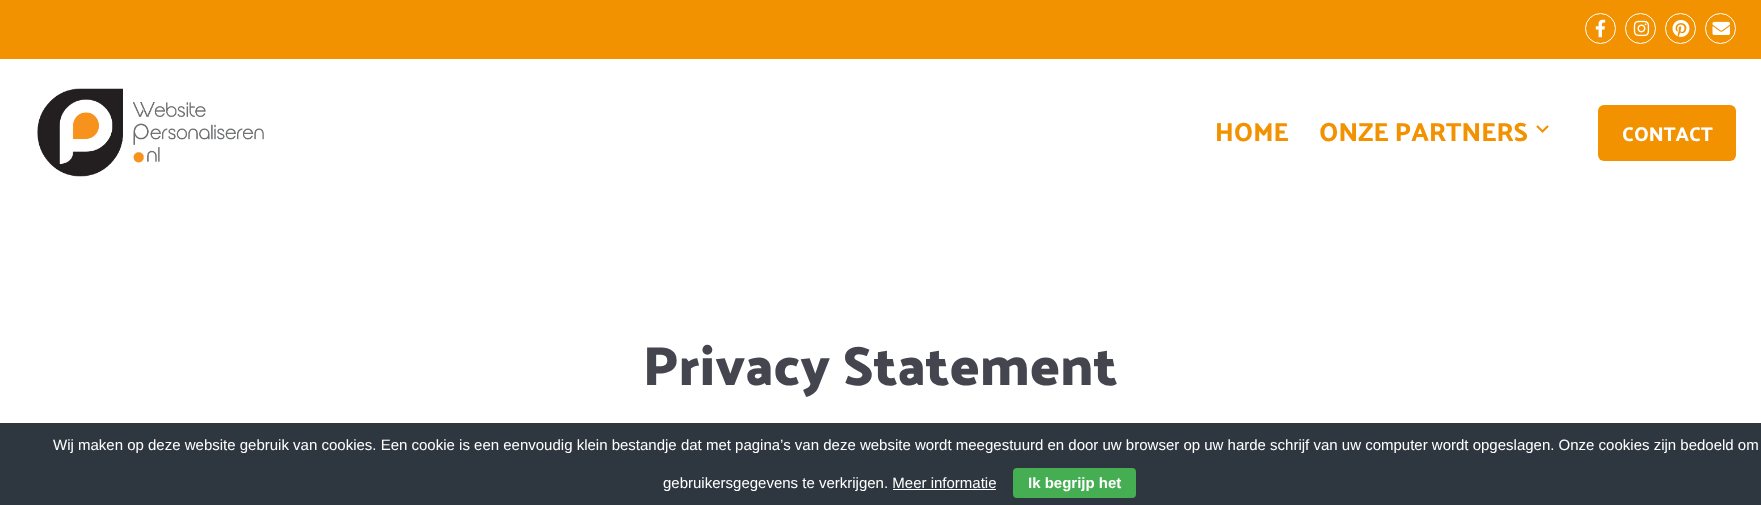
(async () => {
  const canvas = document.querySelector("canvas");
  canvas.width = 1761;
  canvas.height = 505;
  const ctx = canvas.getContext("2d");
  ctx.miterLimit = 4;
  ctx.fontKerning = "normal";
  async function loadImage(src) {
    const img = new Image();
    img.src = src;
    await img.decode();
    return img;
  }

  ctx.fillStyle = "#ffffff";
  ctx.fillRect(0, 0, 1761, 505);
  ctx.fillStyle = "#f29200";
  ctx.fillRect(0, 0, 1761, 59);
  ctx.beginPath();
  ctx.arc(1600.5, 28.5, 15, 0, Math.PI * 2);
  ctx.strokeStyle = "#ffffff";
  ctx.stroke();
  ctx.drawImage(await loadImage("img/1.png"), 1595, 19, 11, 19);
  ctx.beginPath();
  ctx.arc(1640.5, 28.5, 15, 0, Math.PI * 2);
  ctx.stroke();
  ctx.drawImage(await loadImage("img/2.png"), 1633, 20, 17, 17);
  ctx.beginPath();
  ctx.arc(1680.5, 28.5, 15, 0, Math.PI * 2);
  ctx.stroke();
  ctx.drawImage(await loadImage("img/3.png"), 1672, 20, 18, 17);
  ctx.beginPath();
  ctx.arc(1720.5, 28.5, 15, 0, Math.PI * 2);
  ctx.stroke();
  ctx.drawImage(await loadImage("img/4.png"), 1712, 21, 18, 14);
  ctx.drawImage(await loadImage("img/5.png"), 37, 88, 227, 89);
  ctx.drawImage(await loadImage("img/6.png"), 1536, 125, 13, 8);
  ctx.beginPath();
  ctx.roundRect(1598, 105, 138, 56, 6);
  ctx.fill();
  ctx.fillStyle = "#2e363f";
  ctx.fillRect(0, 423, 1761, 82);
  ctx.fillStyle = "#45ae52";
  ctx.beginPath();
  ctx.roundRect(1013, 468, 123, 30, 4);
  ctx.fill();
  ctx.fillStyle = "#ffffff";
  ctx.fillRect(893, 489, 103, 1);
  ctx.font = "500 26.25px Palanquin Dark";
  ctx.fillStyle = "#f29200";
  ctx.fillText("HOME", 1215, 141);
  ctx.fillText("ONZE PARTNERS", 1319, 141);
  ctx.font = "500 20px Palanquin Dark";
  ctx.fillStyle = "#ffffff";
  ctx.fillText("CONTACT", 1622, 141);
  ctx.font = "600 55px Palanquin Dark";
  ctx.fillStyle = "#45454f";
  ctx.fillText("Privacy Statement", 643, 385);
  ctx.font = "15px Liberation Sans";
  ctx.fillStyle = "#ffffff";
  ctx.fillText("Wij maken op deze website gebruik van cookies. Een cookie is een eenvoudig klein bestandje dat met pagina’s van deze website wordt meegestuurd en door uw browser op uw harde schrijf van uw computer wordt opgeslagen. Onze cookies zijn bedoeld om", 53, 450);
  ctx.fillText("gebruikersgegevens te verkrijgen. Meer informatie", 663, 488);
  ctx.font = "bold 15px Liberation Sans";
  ctx.fillText("Ik begrijp het", 1028, 488);
})();
